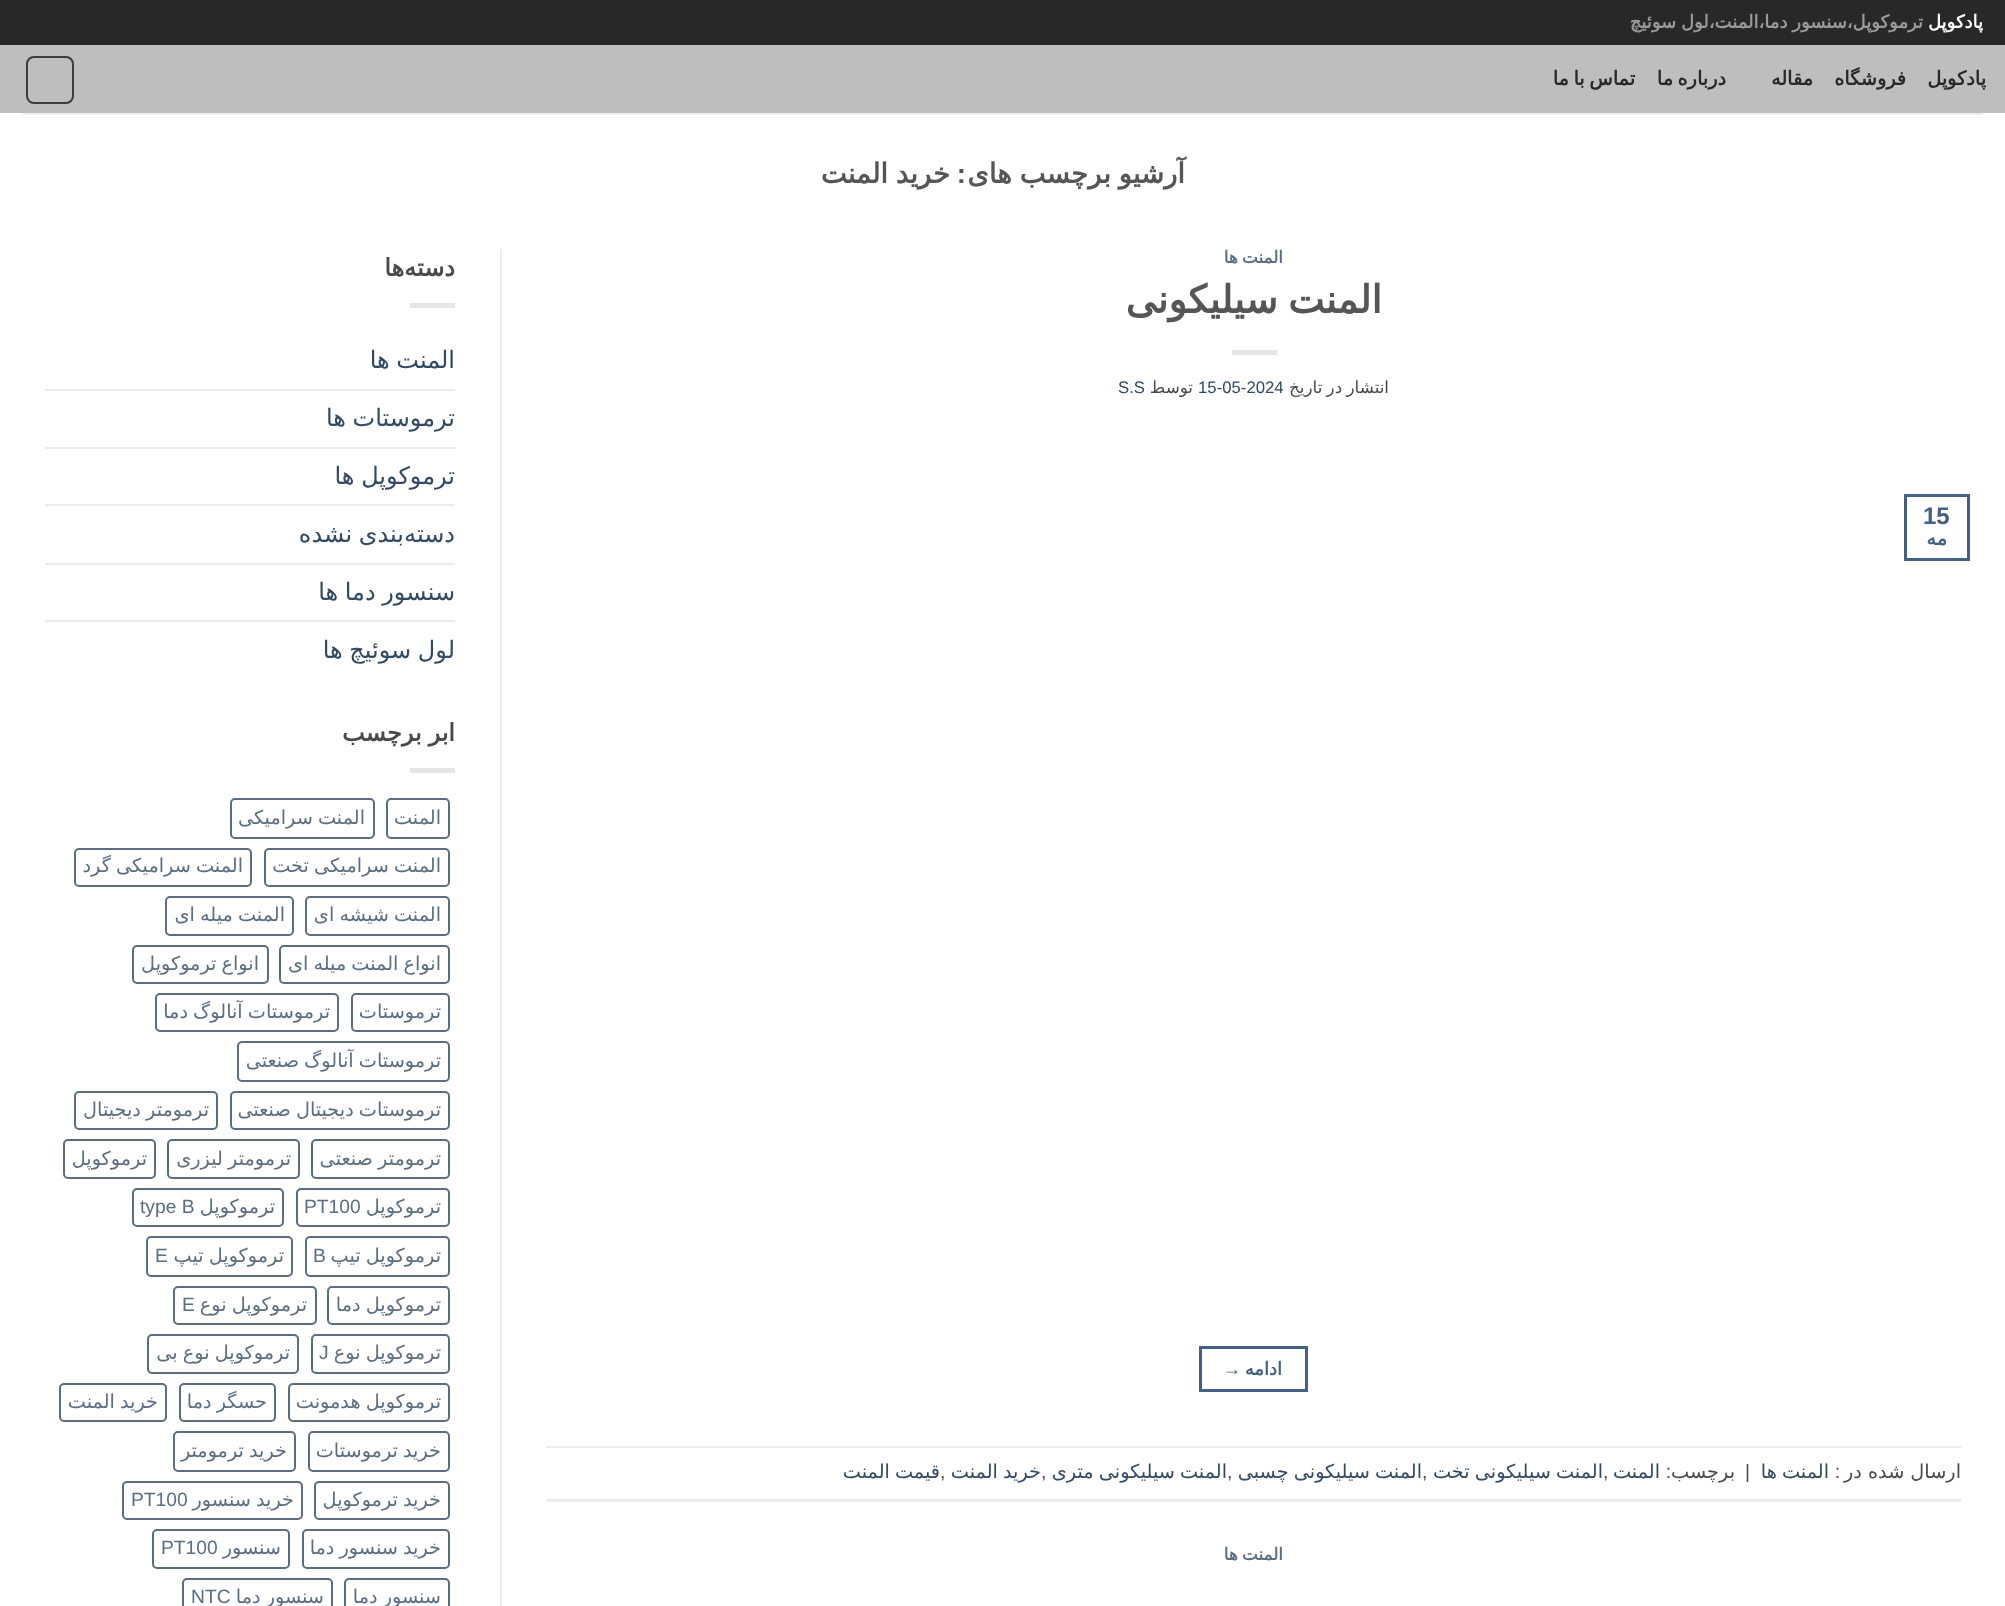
(async () => {
  const canvas = document.querySelector("canvas");
  canvas.width = 2005;
  canvas.height = 1606;
  const ctx = canvas.getContext("2d");
  ctx.miterLimit = 4;
  ctx.fontKerning = "normal";

  ctx.fillStyle = "#ffffff";
  ctx.fillRect(0, 0, 2005, 1606);
  ctx.fillStyle = "#282828";
  ctx.fillRect(0, 0, 2005, 45);
  ctx.fillStyle = "#bebebe";
  ctx.fillRect(0, 45, 2005, 68);
  ctx.beginPath();
  ctx.roundRect(27, 57, 46, 46, 7);
  ctx.strokeStyle = "#3d3d3d";
  ctx.lineWidth = 2;
  ctx.stroke();
  ctx.fillStyle = "#ededed";
  ctx.fillRect(23, 113, 1960, 2);
  ctx.fillStyle = "#e6e6e6";
  ctx.fillRect(1232, 350, 45, 5);
  ctx.strokeStyle = "#446084";
  ctx.lineWidth = 3;
  ctx.strokeRect(1905.5, 495.5, 63, 64);
  ctx.strokeRect(1200.5, 1347.5, 106, 43);
  for (const [x, y, w, h, color] of [
    [546, 1446, 1415, 2, "#ececec"],
    [546, 1499, 1415, 3, "#ececec"],
    [500, 249, 2, 1357, "#ececec"],
    [410, 303, 45, 5, "#e6e6e6"],
    [45, 389, 410, 2, "#ececec"],
    [45, 447, 410, 2, "#ececec"],
    [45, 504, 410, 2, "#ececec"],
    [45, 563, 410, 2, "#ececec"],
    [45, 620, 410, 2, "#ececec"],
    [410, 768, 45, 5, "#e6e6e6"],
  ]) {
    ctx.fillStyle = color;
    ctx.fillRect(x, y, w, h);
  }
  ctx.beginPath();
  ctx.roundRect(387, 799, 62, 39, 4);
  ctx.strokeStyle = "#5c6d81";
  ctx.lineWidth = 2;
  ctx.stroke();
  ctx.beginPath();
  ctx.roundRect(231, 799, 143, 39, 4);
  ctx.stroke();
  ctx.beginPath();
  ctx.roundRect(265, 849, 184, 37, 4);
  ctx.stroke();
  ctx.beginPath();
  ctx.roundRect(75, 849, 176, 37, 4);
  ctx.stroke();
  ctx.beginPath();
  ctx.roundRect(306, 897, 143, 38, 4);
  ctx.stroke();
  ctx.beginPath();
  ctx.roundRect(166, 897, 127, 38, 4);
  ctx.stroke();
  ctx.beginPath();
  ctx.roundRect(280, 946, 169, 37, 4);
  ctx.stroke();
  ctx.beginPath();
  ctx.roundRect(133, 946, 135, 37, 4);
  ctx.stroke();
  ctx.beginPath();
  ctx.roundRect(352, 994, 97, 37, 4);
  ctx.stroke();
  ctx.beginPath();
  ctx.roundRect(156, 994, 182, 37, 4);
  ctx.stroke();
  ctx.beginPath();
  ctx.roundRect(238, 1042, 211, 39, 4);
  ctx.stroke();
  ctx.beginPath();
  ctx.roundRect(231, 1092, 218, 37, 4);
  ctx.stroke();
  ctx.beginPath();
  ctx.roundRect(75, 1092, 142, 37, 4);
  ctx.stroke();
  ctx.beginPath();
  ctx.roundRect(312, 1140, 137, 38, 4);
  ctx.stroke();
  ctx.beginPath();
  ctx.roundRect(168, 1140, 131, 38, 4);
  ctx.stroke();
  ctx.beginPath();
  ctx.roundRect(64, 1140, 91, 38, 4);
  ctx.stroke();
  ctx.beginPath();
  ctx.roundRect(297, 1189, 152, 37, 4);
  ctx.stroke();
  ctx.beginPath();
  ctx.roundRect(133, 1189, 150, 37, 4);
  ctx.stroke();
  ctx.beginPath();
  ctx.roundRect(306, 1237, 143, 39, 4);
  ctx.stroke();
  ctx.beginPath();
  ctx.roundRect(147, 1237, 145, 39, 4);
  ctx.stroke();
  ctx.beginPath();
  ctx.roundRect(328, 1287, 121, 37, 4);
  ctx.stroke();
  ctx.beginPath();
  ctx.roundRect(174, 1287, 142, 37, 4);
  ctx.stroke();
  ctx.beginPath();
  ctx.roundRect(312, 1335, 137, 38, 4);
  ctx.stroke();
  ctx.beginPath();
  ctx.roundRect(148, 1335, 150, 38, 4);
  ctx.stroke();
  ctx.beginPath();
  ctx.roundRect(289, 1384, 160, 37, 4);
  ctx.stroke();
  ctx.beginPath();
  ctx.roundRect(180, 1384, 95, 37, 4);
  ctx.stroke();
  ctx.beginPath();
  ctx.roundRect(60, 1384, 106, 37, 4);
  ctx.stroke();
  ctx.beginPath();
  ctx.roundRect(309, 1432, 140, 39, 4);
  ctx.stroke();
  ctx.beginPath();
  ctx.roundRect(174, 1432, 121, 39, 4);
  ctx.stroke();
  ctx.beginPath();
  ctx.roundRect(315, 1482, 134, 37, 4);
  ctx.stroke();
  ctx.beginPath();
  ctx.roundRect(123, 1482, 179, 37, 4);
  ctx.stroke();
  ctx.beginPath();
  ctx.roundRect(303, 1530, 146, 38, 4);
  ctx.stroke();
  ctx.beginPath();
  ctx.roundRect(153, 1530, 136, 38, 4);
  ctx.stroke();
  ctx.beginPath();
  ctx.roundRect(345, 1579, 104, 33, 4);
  ctx.stroke();
  ctx.beginPath();
  ctx.roundRect(183, 1579, 149, 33, 4);
  ctx.stroke();
  ctx.direction = "rtl";
  ctx.font = "bold 18px DejaVu Sans";
  ctx.fillStyle = "#ffffff";
  ctx.fillText("پادکوپل", 1983, 28);
  ctx.wordSpacing = "-1px";
  ctx.fillStyle = "#999999";
  ctx.fillText("ترموکوپل،سنسور دما،المنت،لول سوئیچ", 1923, 28);
  ctx.letterSpacing = "0.4px";
  ctx.wordSpacing = "0px";
  ctx.font = "bold 19.25px DejaVu Sans";
  ctx.fillStyle = "#292828";
  for (const [text, x, y] of [
    ["پادکوپل", 1986, 85],
    ["فروشگاه", 1906, 85],
    ["مقاله", 1813, 85],
  ]) {
    ctx.fillText(text, x, y);
  }
  ctx.wordSpacing = "-2px";
  ctx.fillText("درباره ما", 1726, 85);
  ctx.fillText("تماس با ما", 1635, 85);
  ctx.letterSpacing = "0px";
  ctx.wordSpacing = "-1px";
  ctx.font = "bold 27.5px DejaVu Sans";
  ctx.fillStyle = "#555555";
  ctx.fillText("آرشیو برچسب های", 1185, 183);
  ctx.wordSpacing = "0px";
  ctx.font = "bold 27.5px Liberation Sans";
  ctx.fillText(":", 966, 183);
  ctx.wordSpacing = "-1px";
  ctx.font = "bold 27.5px DejaVu Sans";
  ctx.fillText("خرید المنت", 950, 183);
  ctx.font = "bold 16.75px DejaVu Sans";
  ctx.fillStyle = "#5c6d81";
  ctx.fillText("المنت ها", 1283, 263);
  ctx.wordSpacing = "-2px";
  ctx.font = "bold 38.5px DejaVu Sans";
  ctx.fillStyle = "#555555";
  ctx.fillText("المنت سیلیکونی", 1382, 313);
  ctx.wordSpacing = "-1px";
  ctx.font = "16.75px DejaVu Sans";
  ctx.fillStyle = "#4a4a4a";
  ctx.fillText("انتشار در تاریخ", 1389, 393);
  ctx.wordSpacing = "0px";
  ctx.direction = "ltr";
  ctx.font = "16.75px Liberation Sans";
  ctx.fillStyle = "#334862";
  ctx.fillText("15-05-2024", 1198, 393);
  ctx.direction = "rtl";
  ctx.font = "16.75px DejaVu Sans";
  ctx.fillStyle = "#4a4a4a";
  ctx.fillText("توسط", 1193, 393);
  ctx.direction = "ltr";
  ctx.font = "16.75px Liberation Sans";
  ctx.fillStyle = "#334862";
  ctx.fillText("S.S", 1118, 393);
  ctx.font = "bold 24px Liberation Sans";
  ctx.fillStyle = "#446084";
  ctx.fillText("15", 1923, 524);
  ctx.direction = "rtl";
  ctx.font = "bold 19.25px DejaVu Sans";
  ctx.fillText("مه", 1947, 545);
  ctx.letterSpacing = "0.5px";
  ctx.font = "bold 18px DejaVu Sans";
  ctx.fillText("ادامه", 1282, 1375);
  ctx.direction = "ltr";
  ctx.font = "bold 18px Liberation Sans";
  ctx.fillText("→", 1223, 1375);
  ctx.letterSpacing = "0px";
  ctx.direction = "rtl";
  ctx.font = "19.25px DejaVu Sans";
  ctx.fillStyle = "#4a4a4a";
  ctx.fillText("ارسال شده در", 1961, 1478);
  ctx.font = "19.25px Liberation Sans";
  ctx.fillText(":", 1840, 1478);
  ctx.wordSpacing = "-1px";
  ctx.font = "19.25px DejaVu Sans";
  ctx.fillStyle = "#334862";
  ctx.fillText("المنت ها", 1829, 1478);
  ctx.wordSpacing = "0px";
  ctx.direction = "ltr";
  ctx.font = "19.25px Liberation Sans";
  ctx.fillStyle = "#4a4a4a";
  ctx.fillText("|", 1745, 1478);
  ctx.direction = "rtl";
  ctx.font = "19.25px DejaVu Sans";
  ctx.fillText("برچسب", 1735, 1478);
  ctx.font = "19.25px Liberation Sans";
  ctx.fillText(":", 1671, 1478);
  ctx.font = "19.25px DejaVu Sans";
  ctx.fillStyle = "#334862";
  ctx.fillText("المنت", 1660, 1478);
  ctx.direction = "ltr";
  ctx.font = "19.25px Liberation Sans";
  ctx.fillStyle = "#4a4a4a";
  ctx.fillText(",", 1603, 1478);
  ctx.wordSpacing = "-1px";
  ctx.direction = "rtl";
  ctx.font = "19.25px DejaVu Sans";
  ctx.fillStyle = "#334862";
  ctx.fillText("المنت سیلیکونی تخت", 1603, 1478);
  ctx.wordSpacing = "0px";
  ctx.direction = "ltr";
  ctx.font = "19.25px Liberation Sans";
  ctx.fillStyle = "#4a4a4a";
  ctx.fillText(",", 1422, 1478);
  ctx.wordSpacing = "-1px";
  ctx.direction = "rtl";
  ctx.font = "19.25px DejaVu Sans";
  ctx.fillStyle = "#334862";
  ctx.fillText("المنت سیلیکونی چسبی", 1422, 1478);
  ctx.wordSpacing = "0px";
  ctx.direction = "ltr";
  ctx.font = "19.25px Liberation Sans";
  ctx.fillStyle = "#4a4a4a";
  ctx.fillText(",", 1227, 1478);
  ctx.wordSpacing = "-1px";
  ctx.direction = "rtl";
  ctx.font = "19.25px DejaVu Sans";
  ctx.fillStyle = "#334862";
  ctx.fillText("المنت سیلیکونی متری", 1227, 1478);
  ctx.wordSpacing = "0px";
  ctx.direction = "ltr";
  ctx.font = "19.25px Liberation Sans";
  ctx.fillStyle = "#4a4a4a";
  ctx.fillText(",", 1041, 1478);
  ctx.wordSpacing = "-1px";
  ctx.direction = "rtl";
  ctx.font = "19.25px DejaVu Sans";
  ctx.fillStyle = "#334862";
  ctx.fillText("خرید المنت", 1041, 1478);
  ctx.wordSpacing = "0px";
  ctx.direction = "ltr";
  ctx.font = "19.25px Liberation Sans";
  ctx.fillStyle = "#4a4a4a";
  ctx.fillText(",", 940, 1478);
  ctx.wordSpacing = "-1px";
  ctx.direction = "rtl";
  ctx.font = "19.25px DejaVu Sans";
  ctx.fillStyle = "#334862";
  ctx.fillText("قیمت المنت", 940, 1478);
  ctx.font = "bold 16.75px DejaVu Sans";
  ctx.fillStyle = "#5c6d81";
  ctx.fillText("المنت ها", 1283, 1560);
  ctx.wordSpacing = "0px";
  ctx.font = "bold 24px DejaVu Sans";
  ctx.fillStyle = "#4a4a4a";
  ctx.fillText("دسته‌ها", 455, 276);
  ctx.wordSpacing = "-1px";
  ctx.font = "24px DejaVu Sans";
  ctx.fillStyle = "#334862";
  for (const [text, x, y] of [
    ["المنت ها", 455, 368],
    ["ترموستات ها", 455, 426],
    ["ترموکوپل ها", 455, 484],
  ]) {
    ctx.fillText(text, x, y);
  }
  ctx.wordSpacing = "0px";
  ctx.fillText("دسته", 455, 542);
  ctx.wordSpacing = "-1px";
  for (const [text, x, y] of [
    ["بندی نشده", 404, 542],
    ["سنسور دما ها", 455, 600],
    ["لول سوئیچ ها", 455, 658],
  ]) {
    ctx.fillText(text, x, y);
  }
  ctx.font = "bold 24px DejaVu Sans";
  ctx.fillStyle = "#4a4a4a";
  ctx.fillText("ابر برچسب", 455, 741);
  ctx.wordSpacing = "0px";
  ctx.font = "19.25px DejaVu Sans";
  ctx.fillStyle = "#5c6d81";
  ctx.fillText("المنت", 441, 824);
  ctx.wordSpacing = "-1px";
  for (const [text, x, y] of [
    ["المنت سرامیکی", 365, 824],
    ["المنت سرامیکی تخت", 441, 872],
    ["المنت سرامیکی گرد", 243, 872],
    ["المنت شیشه ای", 441, 921],
    ["المنت میله ای", 285, 921],
    ["انواع المنت میله ای", 441, 970],
    ["انواع ترموکوپل", 259, 970],
  ]) {
    ctx.fillText(text, x, y);
  }
  ctx.wordSpacing = "0px";
  ctx.fillText("ترموستات", 441, 1018);
  ctx.wordSpacing = "-1px";
  for (const [text, x, y] of [
    ["ترموستات آنالوگ دما", 330, 1018],
    ["ترموستات آنالوگ صنعتی", 441, 1067],
    ["ترموستات دیجیتال صنعتی", 441, 1116],
    ["ترمومتر دیجیتال", 209, 1116],
    ["ترمومتر صنعتی", 441, 1165],
    ["ترمومتر لیزری", 291, 1165],
  ]) {
    ctx.fillText(text, x, y);
  }
  ctx.wordSpacing = "0px";
  ctx.fillText("ترموکوپل", 147, 1165);
  ctx.fillText("ترموکوپل", 441, 1213);
  ctx.direction = "ltr";
  ctx.font = "19.25px Liberation Sans";
  ctx.fillText("PT100", 304, 1213);
  ctx.direction = "rtl";
  ctx.font = "19.25px DejaVu Sans";
  ctx.fillText("ترموکوپل", 275, 1213);
  ctx.direction = "ltr";
  ctx.font = "19.25px Liberation Sans";
  ctx.fillText("type B", 140, 1213);
  ctx.wordSpacing = "-1px";
  ctx.direction = "rtl";
  ctx.font = "19.25px DejaVu Sans";
  ctx.fillText("ترموکوپل تیپ", 441, 1262);
  ctx.wordSpacing = "0px";
  ctx.direction = "ltr";
  ctx.font = "19.25px Liberation Sans";
  ctx.fillText("B", 313, 1262);
  ctx.wordSpacing = "-1px";
  ctx.direction = "rtl";
  ctx.font = "19.25px DejaVu Sans";
  ctx.fillText("ترموکوپل تیپ", 284, 1262);
  ctx.wordSpacing = "0px";
  ctx.direction = "ltr";
  ctx.font = "19.25px Liberation Sans";
  ctx.fillText("E", 155, 1262);
  ctx.wordSpacing = "-1px";
  ctx.direction = "rtl";
  ctx.font = "19.25px DejaVu Sans";
  ctx.fillText("ترموکوپل دما", 441, 1311);
  ctx.fillText("ترموکوپل نوع", 307, 1311);
  ctx.wordSpacing = "0px";
  ctx.direction = "ltr";
  ctx.font = "19.25px Liberation Sans";
  ctx.fillText("E", 182, 1311);
  ctx.wordSpacing = "-1px";
  ctx.direction = "rtl";
  ctx.font = "19.25px DejaVu Sans";
  ctx.fillText("ترموکوپل نوع", 441, 1359);
  ctx.wordSpacing = "0px";
  ctx.direction = "ltr";
  ctx.font = "19.25px Liberation Sans";
  ctx.fillText("J", 319, 1359);
  ctx.wordSpacing = "-1px";
  ctx.direction = "rtl";
  ctx.font = "19.25px DejaVu Sans";
  for (const [text, x, y] of [
    ["ترموکوپل نوع بی", 290, 1359],
    ["ترموکوپل هدمونت", 441, 1408],
    ["حسگر دما", 267, 1408],
    ["خرید المنت", 158, 1408],
    ["خرید ترموستات", 441, 1457],
    ["خرید ترمومتر", 287, 1457],
    ["خرید ترموکوپل", 441, 1506],
    ["خرید سنسور", 294, 1506],
  ]) {
    ctx.fillText(text, x, y);
  }
  ctx.wordSpacing = "0px";
  ctx.direction = "ltr";
  ctx.font = "19.25px Liberation Sans";
  ctx.fillText("PT100", 131, 1506);
  ctx.wordSpacing = "-1px";
  ctx.direction = "rtl";
  ctx.font = "19.25px DejaVu Sans";
  ctx.fillText("خرید سنسور دما", 441, 1554);
  ctx.wordSpacing = "0px";
  ctx.fillText("سنسور", 281, 1554);
  ctx.direction = "ltr";
  ctx.font = "19.25px Liberation Sans";
  ctx.fillText("PT100", 161, 1554);
  ctx.wordSpacing = "-1px";
  ctx.direction = "rtl";
  ctx.font = "19.25px DejaVu Sans";
  ctx.fillText("سنسور دما", 441, 1603);
  ctx.fillText("سنسور دما", 324, 1603);
  ctx.wordSpacing = "0px";
  ctx.direction = "ltr";
  ctx.font = "19.25px Liberation Sans";
  ctx.fillText("NTC", 191, 1603);
})();
